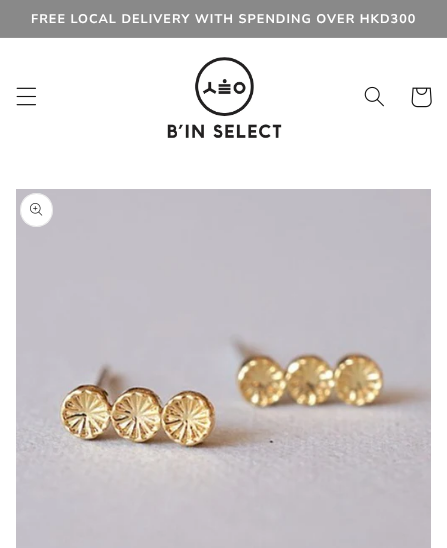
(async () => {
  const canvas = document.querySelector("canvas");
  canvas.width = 447;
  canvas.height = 548;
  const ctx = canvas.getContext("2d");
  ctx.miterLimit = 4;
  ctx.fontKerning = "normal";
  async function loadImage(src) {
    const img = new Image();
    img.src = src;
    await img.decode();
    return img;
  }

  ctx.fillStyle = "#ffffff";
  ctx.fillRect(0, 0, 447, 548);
  ctx.fillStyle = "#898989";
  ctx.fillRect(0, 0, 447, 37);
  ctx.fillStyle = "#929292";
  ctx.fillRect(0, 37, 447, 1);
  ctx.drawImage(await loadImage("img/1.png"), 16, 87, 20, 19);
  ctx.drawImage(await loadImage("img/2.png"), 167, 57, 115, 81);
  ctx.drawImage(await loadImage("img/3.png"), 364, 86, 20, 21);
  ctx.drawImage(await loadImage("img/4.png"), 411, 87, 21, 21);
  ctx.drawImage(await loadImage("img/5.png"), 16, 189, 415, 359);
  ctx.fillStyle = "#ffffff";
  ctx.beginPath();
  ctx.roundRect(20, 193, 33, 34, 16.5);
  ctx.fill();
  ctx.beginPath();
  ctx.roundRect(20.5, 193.5, 32, 33, 16);
  ctx.strokeStyle = "rgba(18, 18, 18, 0.1)";
  ctx.stroke();
  ctx.drawImage(await loadImage("img/6.png"), 30, 203, 13, 13);
  ctx.letterSpacing = "1.05px";
  ctx.font = "bold 12.6px Nunito Sans";
  ctx.fillText("FREE LOCAL DELIVERY WITH SPENDING OVER HKD300", 31, 23);
})();
